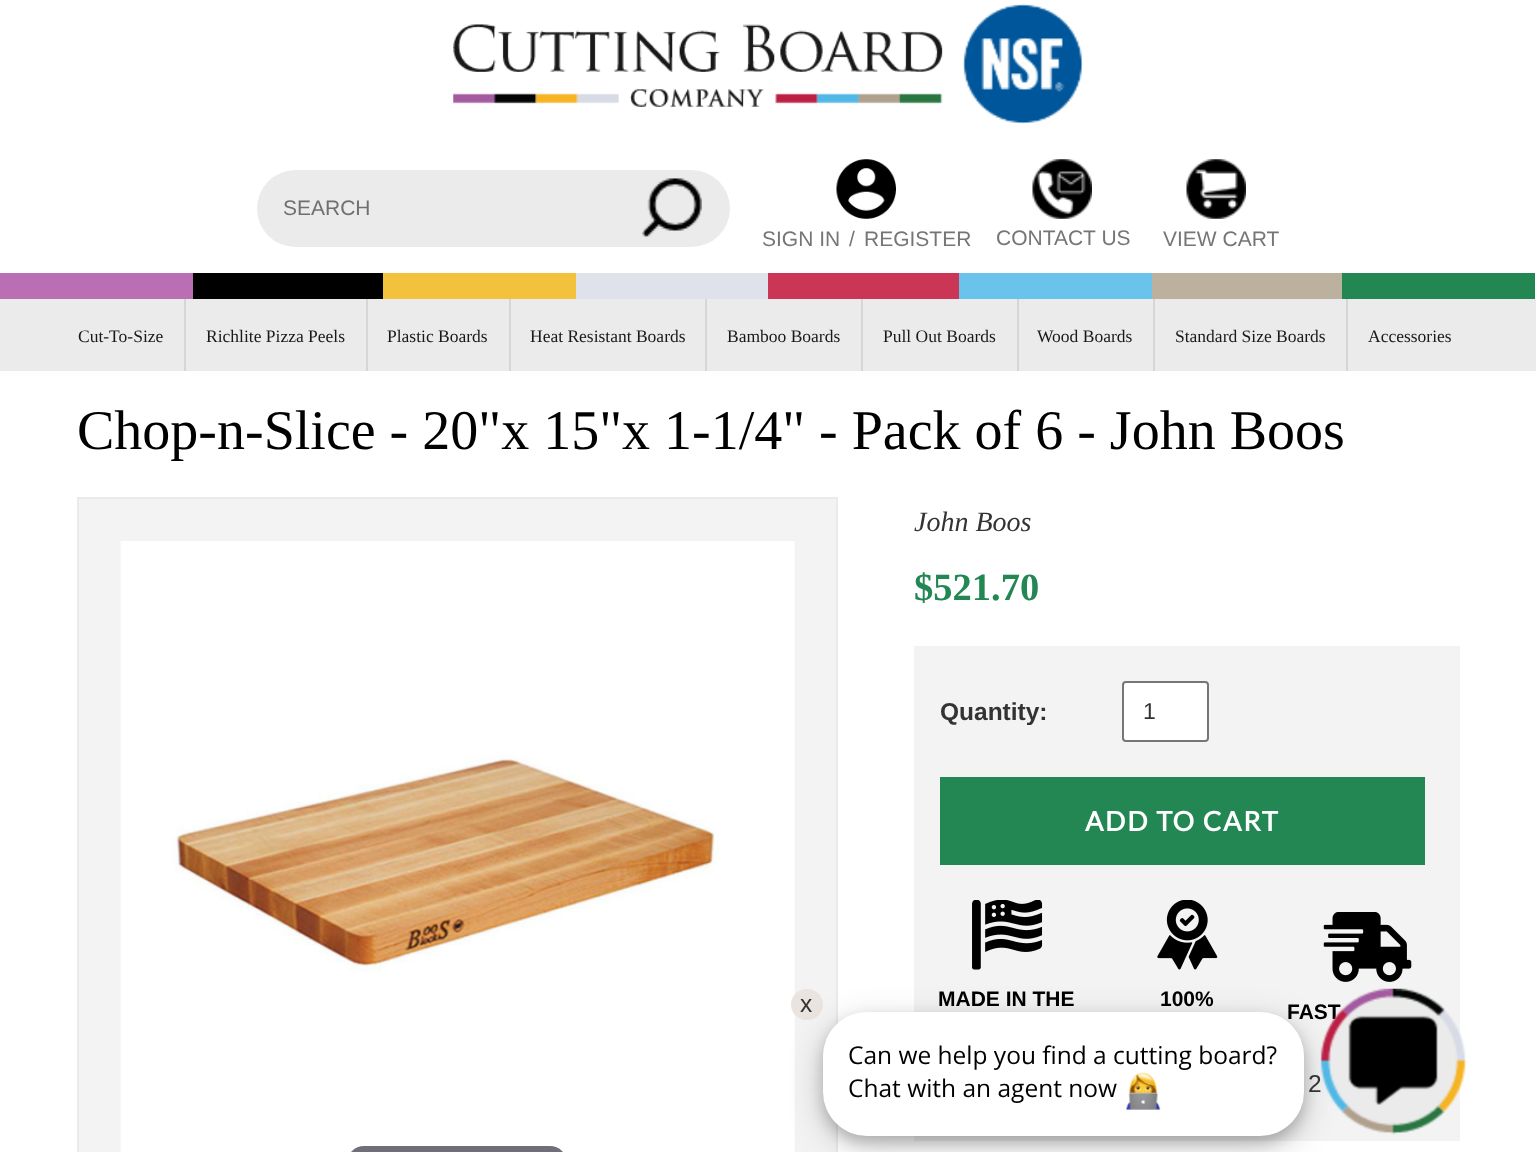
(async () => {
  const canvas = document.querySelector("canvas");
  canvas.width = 1536;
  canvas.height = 1152;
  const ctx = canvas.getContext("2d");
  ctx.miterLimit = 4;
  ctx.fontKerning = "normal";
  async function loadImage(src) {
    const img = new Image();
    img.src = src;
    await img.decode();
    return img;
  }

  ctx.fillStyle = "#ffffff";
  ctx.fillRect(0, 0, 1536, 1152);
  ctx.drawImage(await loadImage("img/1.png"), 453, 24, 490, 83);
  ctx.drawImage(await loadImage("img/2.png"), 962, 3, 121, 121);
  ctx.fillStyle = "#ebebeb";
  ctx.beginPath();
  ctx.roundRect(257, 170, 473, 77, 38.5);
  ctx.fill();
  ctx.drawImage(await loadImage("img/3.png"), 642, 178, 60, 59);
  ctx.drawImage(await loadImage("img/4.png"), 836, 159, 60, 60);
  ctx.drawImage(await loadImage("img/5.png"), 1032, 159, 60, 60);
  ctx.drawImage(await loadImage("img/6.png"), 1186, 159, 60, 60);
  for (const [x, y, w, h, color] of [
    [0, 273, 193, 26, "#ba6fb4"],
    [193, 273, 190, 26, "#000000"],
    [383, 273, 193, 26, "#f3c23c"],
    [576, 273, 192, 26, "#e0e2eb"],
    [768, 273, 191, 26, "#cb3556"],
    [959, 273, 193, 26, "#6ac3ea"],
    [1152, 273, 190, 26, "#bcb09f"],
    [1342, 273, 193, 26, "#238754"],
    [0, 299, 1536, 72, "#ebebeb"],
    [184, 299, 2, 72, "#d6d6d6"],
    [366, 299, 2, 72, "#d6d6d6"],
    [509, 299, 2, 72, "#d6d6d6"],
    [705, 299, 2, 72, "#d6d6d6"],
    [861, 299, 2, 72, "#d6d6d6"],
    [1017, 299, 2, 72, "#d6d6d6"],
    [1153, 299, 2, 72, "#d6d6d6"],
    [1346, 299, 2, 72, "#d6d6d6"],
  ]) {
    ctx.fillStyle = color;
    ctx.fillRect(x, y, w, h);
  }
  ctx.fillStyle = "#f3f3f4";
  ctx.beginPath();
  ctx.rect(78, 498, 759, 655);
  ctx.fill();
  ctx.strokeStyle = "#eaeaea";
  ctx.lineWidth = 2;
  ctx.stroke();
  ctx.drawImage(await loadImage("img/7.png"), 120, 541, 675, 611);
  ctx.fillStyle = "#6f7077";
  ctx.beginPath();
  ctx.roundRect(347, 1146, 220, 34, 27.5);
  ctx.fill();
  ctx.fillStyle = "#f3f3f4";
  ctx.fillRect(914, 646, 546, 495);
  ctx.fillStyle = "#ffffff";
  ctx.beginPath();
  ctx.roundRect(1123, 682, 85, 59, 3);
  ctx.fill();
  ctx.strokeStyle = "#767676";
  ctx.stroke();
  ctx.fillStyle = "#238754";
  ctx.fillRect(940, 777, 485, 88);
  ctx.drawImage(await loadImage("img/8.png"), 972, 900, 71, 70);
  ctx.drawImage(await loadImage("img/9.png"), 1157, 900, 61, 70);
  ctx.drawImage(await loadImage("img/10.png"), 1323, 912, 89, 70);
  ctx.fillStyle = "#e9e4e0";
  ctx.beginPath();
  ctx.roundRect(791, 989, 32, 31, 15.5);
  ctx.fill();
  ctx.fillStyle = "rgba(0, 0, 0, 0.19)";
  ctx.filter = "blur(17.5px)";
  ctx.beginPath();
  ctx.roundRect(823, 1022, 481, 124, 44);
  ctx.fill();
  ctx.filter = "none";
  ctx.fillStyle = "rgba(0, 0, 0, 0.2)";
  ctx.filter = "blur(7px)";
  ctx.beginPath();
  ctx.roundRect(823, 1019, 481, 124, 44);
  ctx.fill();
  ctx.filter = "none";
  ctx.font = "21px Liberation Sans";
  ctx.fillStyle = "#707070";
  ctx.fillText("SEARCH", 283, 215);
  ctx.fillStyle = "#767676";
  for (const [text, x, y] of [
    ["SIGN IN", 762, 246],
    ["/", 849, 246],
    ["REGISTER", 864, 246],
    ["CONTACT US", 996, 245],
    ["VIEW CART", 1163, 246],
  ]) {
    ctx.fillText(text, x, y);
  }
  ctx.font = "17.5px Liberation Serif";
  ctx.fillStyle = "#191919";
  for (const [text, x, y] of [
    ["Cut-To-Size", 78, 342],
    ["Richlite Pizza Peels", 206, 342],
    ["Plastic Boards", 387, 342],
    ["Heat Resistant Boards", 530, 342],
    ["Bamboo Boards", 727, 342],
    ["Pull Out Boards", 883, 342],
    ["Wood Boards", 1037, 342],
    ["Standard Size Boards", 1175, 342],
    ["Accessories", 1368, 342],
  ]) {
    ctx.fillText(text, x, y);
  }
  ctx.font = "56px Liberation Serif";
  ctx.fillStyle = "#000000";
  ctx.fillText("Chop-n-Slice - 20\"x 15\"x 1-1/4\" - Pack of 6 - John Boos", 77, 449);
  ctx.font = "italic 28px Liberation Serif";
  ctx.fillStyle = "#333333";
  ctx.fillText("John Boos", 914, 531);
  ctx.font = "bold 38.5px Liberation Serif";
  ctx.fillStyle = "#238754";
  ctx.fillText("$521.70", 914, 600);
  ctx.font = "bold 24.5px Liberation Sans";
  ctx.fillStyle = "#333333";
  ctx.fillText("Quantity:", 940, 720);
  ctx.font = "23px Liberation Sans";
  ctx.fillText("1", 1143, 719);
  ctx.letterSpacing = "1.75px";
  ctx.font = "bold 27px Lato";
  ctx.fillStyle = "#ffffff";
  ctx.fillText("ADD TO CART", 1085, 831);
  ctx.letterSpacing = "0px";
  ctx.font = "bold 21px Liberation Sans";
  ctx.fillStyle = "#000000";
  for (const [text, x, y] of [
    ["MADE IN THE", 938, 1006],
    ["100%", 1160, 1006],
    ["FAST", 1287, 1019],
  ]) {
    ctx.fillText(text, x, y);
  }
  ctx.font = "24.5px Liberation Sans";
  ctx.fillStyle = "#333333";
  ctx.fillText("2", 1308, 1092);
  ctx.fillText("x", 800, 1012);
  ctx.drawImage(await loadImage("img/11.png"), 1320, 988, 147, 147);
  ctx.fillStyle = "#ffffff";
  ctx.beginPath();
  ctx.roundRect(823, 1012, 481, 124, 44);
  ctx.fill();
  ctx.font = "24.5px Open Sans";
  ctx.fillStyle = "#000000";
  ctx.fillText("Can we help you find a cutting board?", 848, 1064);
  ctx.fillText("Chat with an agent now", 848, 1097);
  ctx.drawImage(await loadImage("img/12.png"), 1126, 1072, 35, 38);
})();
